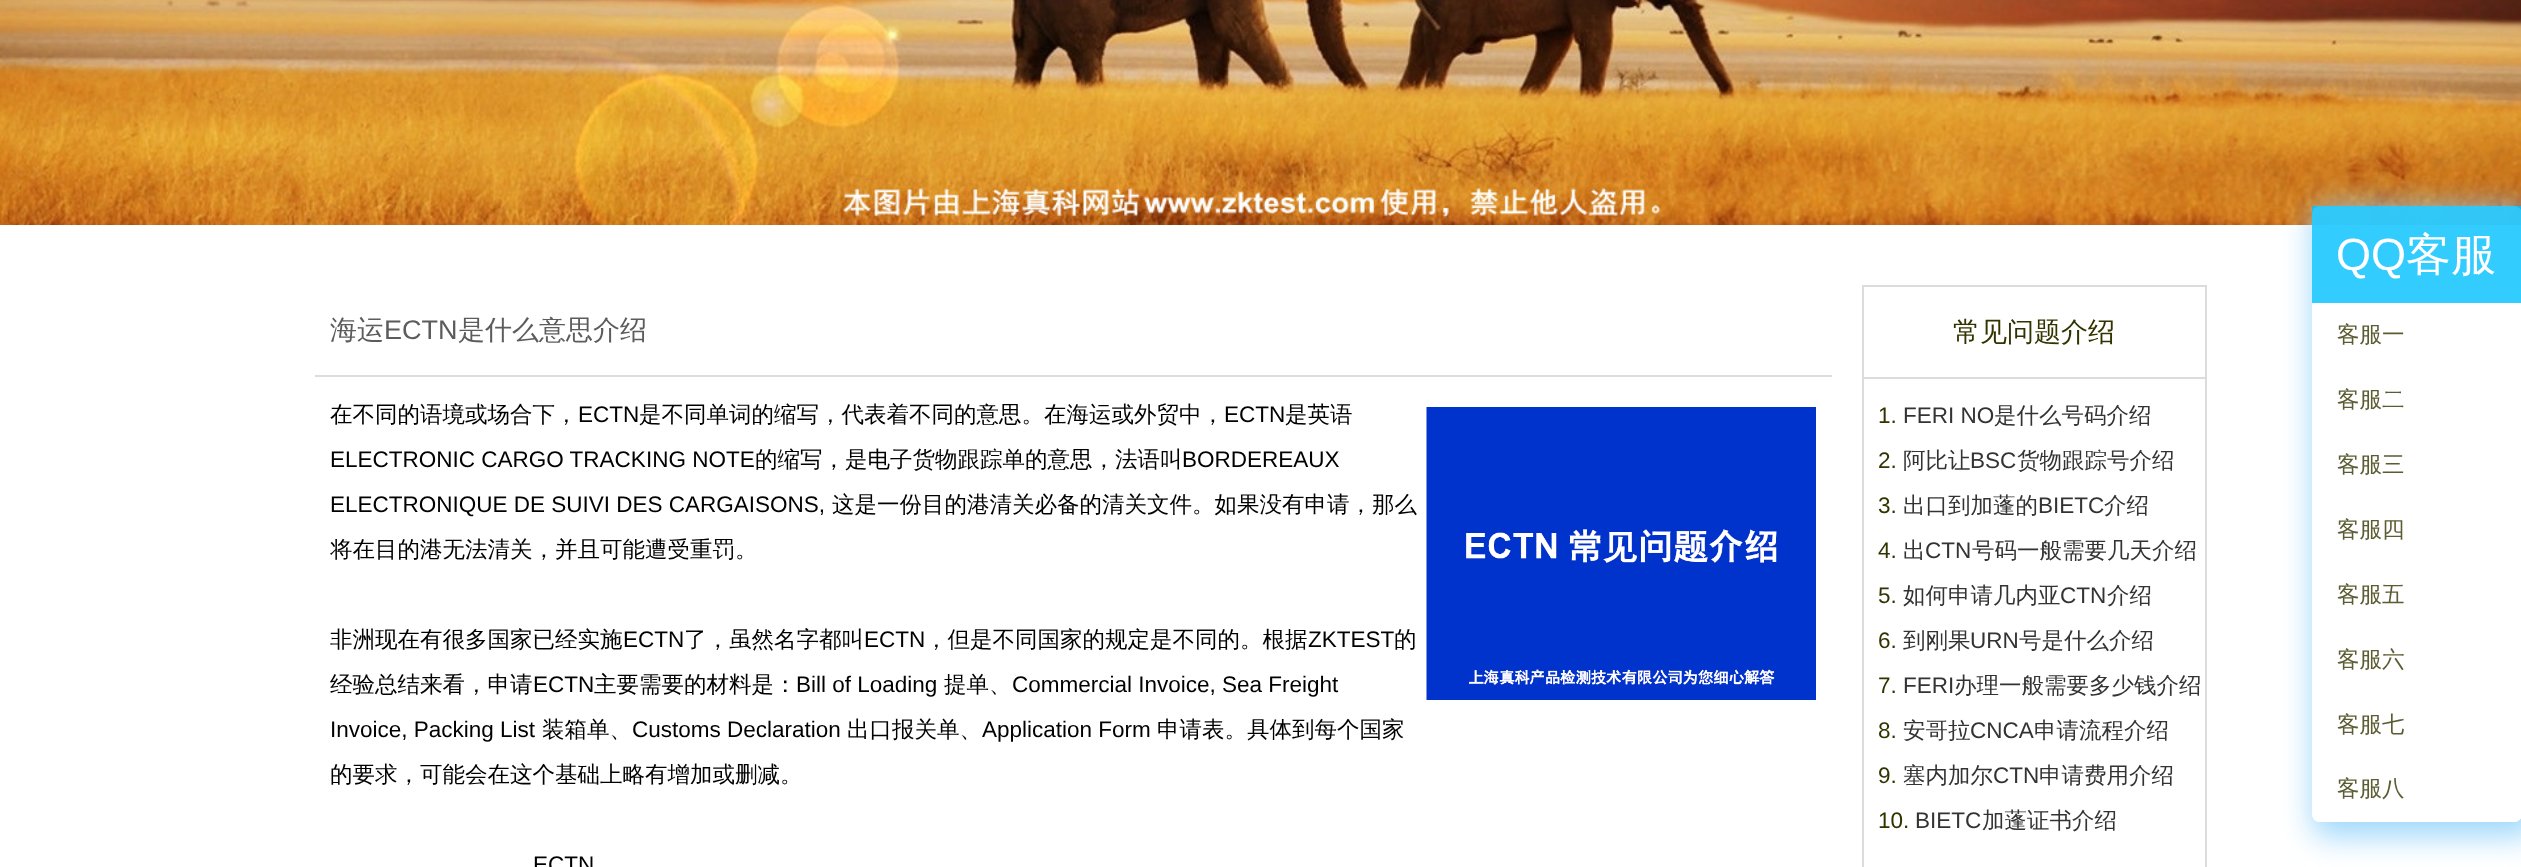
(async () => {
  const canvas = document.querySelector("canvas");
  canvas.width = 2521;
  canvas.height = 867;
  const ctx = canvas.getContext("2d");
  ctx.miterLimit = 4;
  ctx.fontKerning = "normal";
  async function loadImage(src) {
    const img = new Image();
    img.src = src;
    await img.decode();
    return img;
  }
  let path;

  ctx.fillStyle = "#ffffff";
  ctx.fillRect(0, 0, 2521, 867);
  ctx.drawImage(await loadImage("img/1.png"), 0, 0, 2521, 225);
  ctx.fillStyle = "#dcdcdc";
  ctx.fillRect(315, 375, 1517, 2);
  ctx.drawImage(await loadImage("img/2.png"), 1426, 407, 390, 293);
  ctx.strokeStyle = "#dcdcdc";
  ctx.lineWidth = 2;
  ctx.strokeRect(1863, 286, 343, 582);
  ctx.fillRect(1863, 377, 342, 2);
  ctx.save();
  path = new Path2D("M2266 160H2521V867H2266ZM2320 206H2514C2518.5 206 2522 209.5 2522 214V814C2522 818.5 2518.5 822 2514 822H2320C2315.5 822 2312 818.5 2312 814V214C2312 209.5 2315.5 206 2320 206Z");
  ctx.clip(path, "evenodd");
  ctx.fillStyle = "rgba(135, 206, 250, 0.8)";
  ctx.filter = "blur(15px)";
  ctx.beginPath();
  ctx.roundRect(2312, 206, 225, 631, 15);
  ctx.fill();
  ctx.filter = "none";
  ctx.restore();
  ctx.fillStyle = "rgba(255, 255, 255, 0.8)";
  ctx.beginPath();
  ctx.roundRect(2312, 206, 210, 616, 8);
  ctx.fill();
  ctx.fillStyle = "rgba(0, 191, 255, 0.8)";
  ctx.fillRect(2312, 206, 209, 97);
  ctx.font = "500 27px WenQuanYi Zen Hei";
  ctx.fillStyle = "#5c5c5c";
  ctx.fillText("海运", 330, 339);
  ctx.font = "27px Liberation Sans";
  ctx.fillText("ECTN", 384, 339);
  ctx.font = "500 27px WenQuanYi Zen Hei";
  ctx.fillText("是什么意思介绍", 458, 339);
  ctx.font = "500 22.5px WenQuanYi Zen Hei";
  ctx.fillStyle = "#000000";
  ctx.fillText("在不同的语境或场合下，", 330, 422);
  ctx.font = "22.5px Liberation Sans";
  ctx.fillText("ECTN", 578, 422);
  ctx.font = "500 22.5px WenQuanYi Zen Hei";
  ctx.fillText("是不同单词的缩写，代表着不同的意思。在海运或外贸中，", 639, 422);
  ctx.font = "22.5px Liberation Sans";
  ctx.fillText("ECTN", 1224, 422);
  ctx.font = "500 22.5px WenQuanYi Zen Hei";
  ctx.fillText("是英语", 1285, 422);
  ctx.font = "22.5px Liberation Sans";
  ctx.fillText("ELECTRONIC CARGO TRACKING NOTE", 330, 467);
  ctx.font = "500 22.5px WenQuanYi Zen Hei";
  ctx.fillText("的缩写，是电子货物跟踪单的意思，法语叫", 755, 467);
  ctx.font = "22.5px Liberation Sans";
  ctx.fillText("BORDEREAUX", 1182, 467);
  ctx.fillText("ELECTRONIQUE DE SUIVI DES CARGAISONS,", 330, 512);
  ctx.font = "500 22.5px WenQuanYi Zen Hei";
  for (const [text, x, y] of [
    ["这是一份目的港清关必备的清关文件。如果没有申请，那么", 832, 512],
    ["将在目的港无法清关，并且可能遭受重罚。", 330, 557],
    ["非洲现在有很多国家已经实施", 330, 647],
  ]) {
    ctx.fillText(text, x, y);
  }
  ctx.font = "22.5px Liberation Sans";
  ctx.fillText("ECTN", 623, 647);
  ctx.font = "500 22.5px WenQuanYi Zen Hei";
  ctx.fillText("了，虽然名字都叫", 684, 647);
  ctx.font = "22.5px Liberation Sans";
  ctx.fillText("ECTN", 864, 647);
  ctx.font = "500 22.5px WenQuanYi Zen Hei";
  ctx.fillText("，但是不同国家的规定是不同的。根据", 925, 647);
  ctx.font = "22.5px Liberation Sans";
  ctx.fillText("ZKTEST", 1308, 647);
  ctx.font = "500 22.5px WenQuanYi Zen Hei";
  ctx.fillText("的", 1394, 647);
  ctx.fillText("经验总结来看，申请", 330, 692);
  ctx.font = "22.5px Liberation Sans";
  ctx.fillText("ECTN", 533, 692);
  ctx.font = "500 22.5px WenQuanYi Zen Hei";
  ctx.fillText("主要需要的材料是：", 594, 692);
  ctx.font = "22.5px Liberation Sans";
  ctx.fillText("Bill of Loading", 796, 692);
  ctx.font = "500 22.5px WenQuanYi Zen Hei";
  ctx.fillText("提单、", 944, 692);
  ctx.font = "22.5px Liberation Sans";
  ctx.fillText("Commercial Invoice, Sea Freight", 1012, 692);
  ctx.fillText("Invoice, Packing List", 330, 737);
  ctx.font = "500 22.5px WenQuanYi Zen Hei";
  ctx.fillText("装箱单、", 542, 737);
  ctx.font = "22.5px Liberation Sans";
  ctx.fillText("Customs Declaration", 632, 737);
  ctx.font = "500 22.5px WenQuanYi Zen Hei";
  ctx.fillText("出口报关单、", 847, 737);
  ctx.font = "22.5px Liberation Sans";
  ctx.fillText("Application Form", 982, 737);
  ctx.font = "500 22.5px WenQuanYi Zen Hei";
  ctx.fillText("申请表。具体到每个国家", 1157, 737);
  ctx.fillText("的要求，可能会在这个基础上略有增加或删减。", 330, 782);
  ctx.font = "22.5px Liberation Sans";
  ctx.fillText("ECTN", 533, 872);
  ctx.font = "500 27px WenQuanYi Zen Hei";
  ctx.fillStyle = "#333300";
  ctx.fillText("常见问题介绍", 1953, 341);
  ctx.font = "22.5px Liberation Sans";
  ctx.fillText("1.", 1878, 423);
  ctx.fillStyle = "#333333";
  ctx.fillText("FERI NO", 1903, 423);
  ctx.font = "500 22.5px WenQuanYi Zen Hei";
  ctx.fillText("是什么号码介绍", 1994, 423);
  ctx.font = "22.5px Liberation Sans";
  ctx.fillStyle = "#333300";
  ctx.fillText("2.", 1878, 468);
  ctx.font = "500 22.5px WenQuanYi Zen Hei";
  ctx.fillStyle = "#333333";
  ctx.fillText("阿比让", 1903, 468);
  ctx.font = "22.5px Liberation Sans";
  ctx.fillText("BSC", 1970, 468);
  ctx.font = "500 22.5px WenQuanYi Zen Hei";
  ctx.fillText("货物跟踪号介绍", 2017, 468);
  ctx.font = "22.5px Liberation Sans";
  ctx.fillStyle = "#333300";
  ctx.fillText("3.", 1878, 513);
  ctx.font = "500 22.5px WenQuanYi Zen Hei";
  ctx.fillStyle = "#333333";
  ctx.fillText("出口到加蓬的", 1903, 513);
  ctx.font = "22.5px Liberation Sans";
  ctx.fillText("BIETC", 2038, 513);
  ctx.font = "500 22.5px WenQuanYi Zen Hei";
  ctx.fillText("介绍", 2104, 513);
  ctx.font = "22.5px Liberation Sans";
  ctx.fillStyle = "#333300";
  ctx.fillText("4.", 1878, 558);
  ctx.font = "500 22.5px WenQuanYi Zen Hei";
  ctx.fillStyle = "#333333";
  ctx.fillText("出", 1903, 558);
  ctx.font = "22.5px Liberation Sans";
  ctx.fillText("CTN", 1925, 558);
  ctx.font = "500 22.5px WenQuanYi Zen Hei";
  ctx.fillText("号码一般需要几天介绍", 1972, 558);
  ctx.font = "22.5px Liberation Sans";
  ctx.fillStyle = "#333300";
  ctx.fillText("5.", 1878, 603);
  ctx.font = "500 22.5px WenQuanYi Zen Hei";
  ctx.fillStyle = "#333333";
  ctx.fillText("如何申请几内亚", 1903, 603);
  ctx.font = "22.5px Liberation Sans";
  ctx.fillText("CTN", 2060, 603);
  ctx.font = "500 22.5px WenQuanYi Zen Hei";
  ctx.fillText("介绍", 2107, 603);
  ctx.font = "22.5px Liberation Sans";
  ctx.fillStyle = "#333300";
  ctx.fillText("6.", 1878, 648);
  ctx.font = "500 22.5px WenQuanYi Zen Hei";
  ctx.fillStyle = "#333333";
  ctx.fillText("到刚果", 1903, 648);
  ctx.font = "22.5px Liberation Sans";
  ctx.fillText("URN", 1970, 648);
  ctx.font = "500 22.5px WenQuanYi Zen Hei";
  ctx.fillText("号是什么介绍", 2019, 648);
  ctx.font = "22.5px Liberation Sans";
  ctx.fillStyle = "#333300";
  ctx.fillText("7.", 1878, 693);
  ctx.fillStyle = "#333333";
  ctx.fillText("FERI", 1903, 693);
  ctx.font = "500 22.5px WenQuanYi Zen Hei";
  ctx.fillText("办理一般需要多少钱介绍", 1954, 693);
  ctx.font = "22.5px Liberation Sans";
  ctx.fillStyle = "#333300";
  ctx.fillText("8.", 1878, 738);
  ctx.font = "500 22.5px WenQuanYi Zen Hei";
  ctx.fillStyle = "#333333";
  ctx.fillText("安哥拉", 1903, 738);
  ctx.font = "22.5px Liberation Sans";
  ctx.fillText("CNCA", 1970, 738);
  ctx.font = "500 22.5px WenQuanYi Zen Hei";
  ctx.fillText("申请流程介绍", 2034, 738);
  ctx.font = "22.5px Liberation Sans";
  ctx.fillStyle = "#333300";
  ctx.fillText("9.", 1878, 783);
  ctx.font = "500 22.5px WenQuanYi Zen Hei";
  ctx.fillStyle = "#333333";
  ctx.fillText("塞内加尔", 1903, 783);
  ctx.font = "22.5px Liberation Sans";
  ctx.fillText("CTN", 1993, 783);
  ctx.font = "500 22.5px WenQuanYi Zen Hei";
  ctx.fillText("申请费用介绍", 2039, 783);
  ctx.font = "22.5px Liberation Sans";
  ctx.fillStyle = "#333300";
  ctx.fillText("10.", 1878, 828);
  ctx.fillStyle = "#333333";
  ctx.fillText("BIETC", 1915, 828);
  ctx.font = "500 22.5px WenQuanYi Zen Hei";
  ctx.fillText("加蓬证书介绍", 1982, 828);
  ctx.font = "45px Liberation Sans";
  ctx.fillStyle = "#ffffff";
  ctx.fillText("QQ", 2336, 270);
  ctx.font = "500 45px WenQuanYi Zen Hei";
  ctx.fillText("客服", 2406, 270);
  ctx.font = "500 22.5px WenQuanYi Zen Hei";
  ctx.fillStyle = "#5c5c33";
  for (const [text, x, y] of [
    ["客服一", 2337, 342],
    ["客服二", 2337, 407],
    ["客服三", 2337, 472],
    ["客服四", 2337, 537],
    ["客服五", 2337, 602],
    ["客服六", 2337, 667],
    ["客服七", 2337, 732],
    ["客服八", 2337, 796],
  ]) {
    ctx.fillText(text, x, y);
  }
})();
